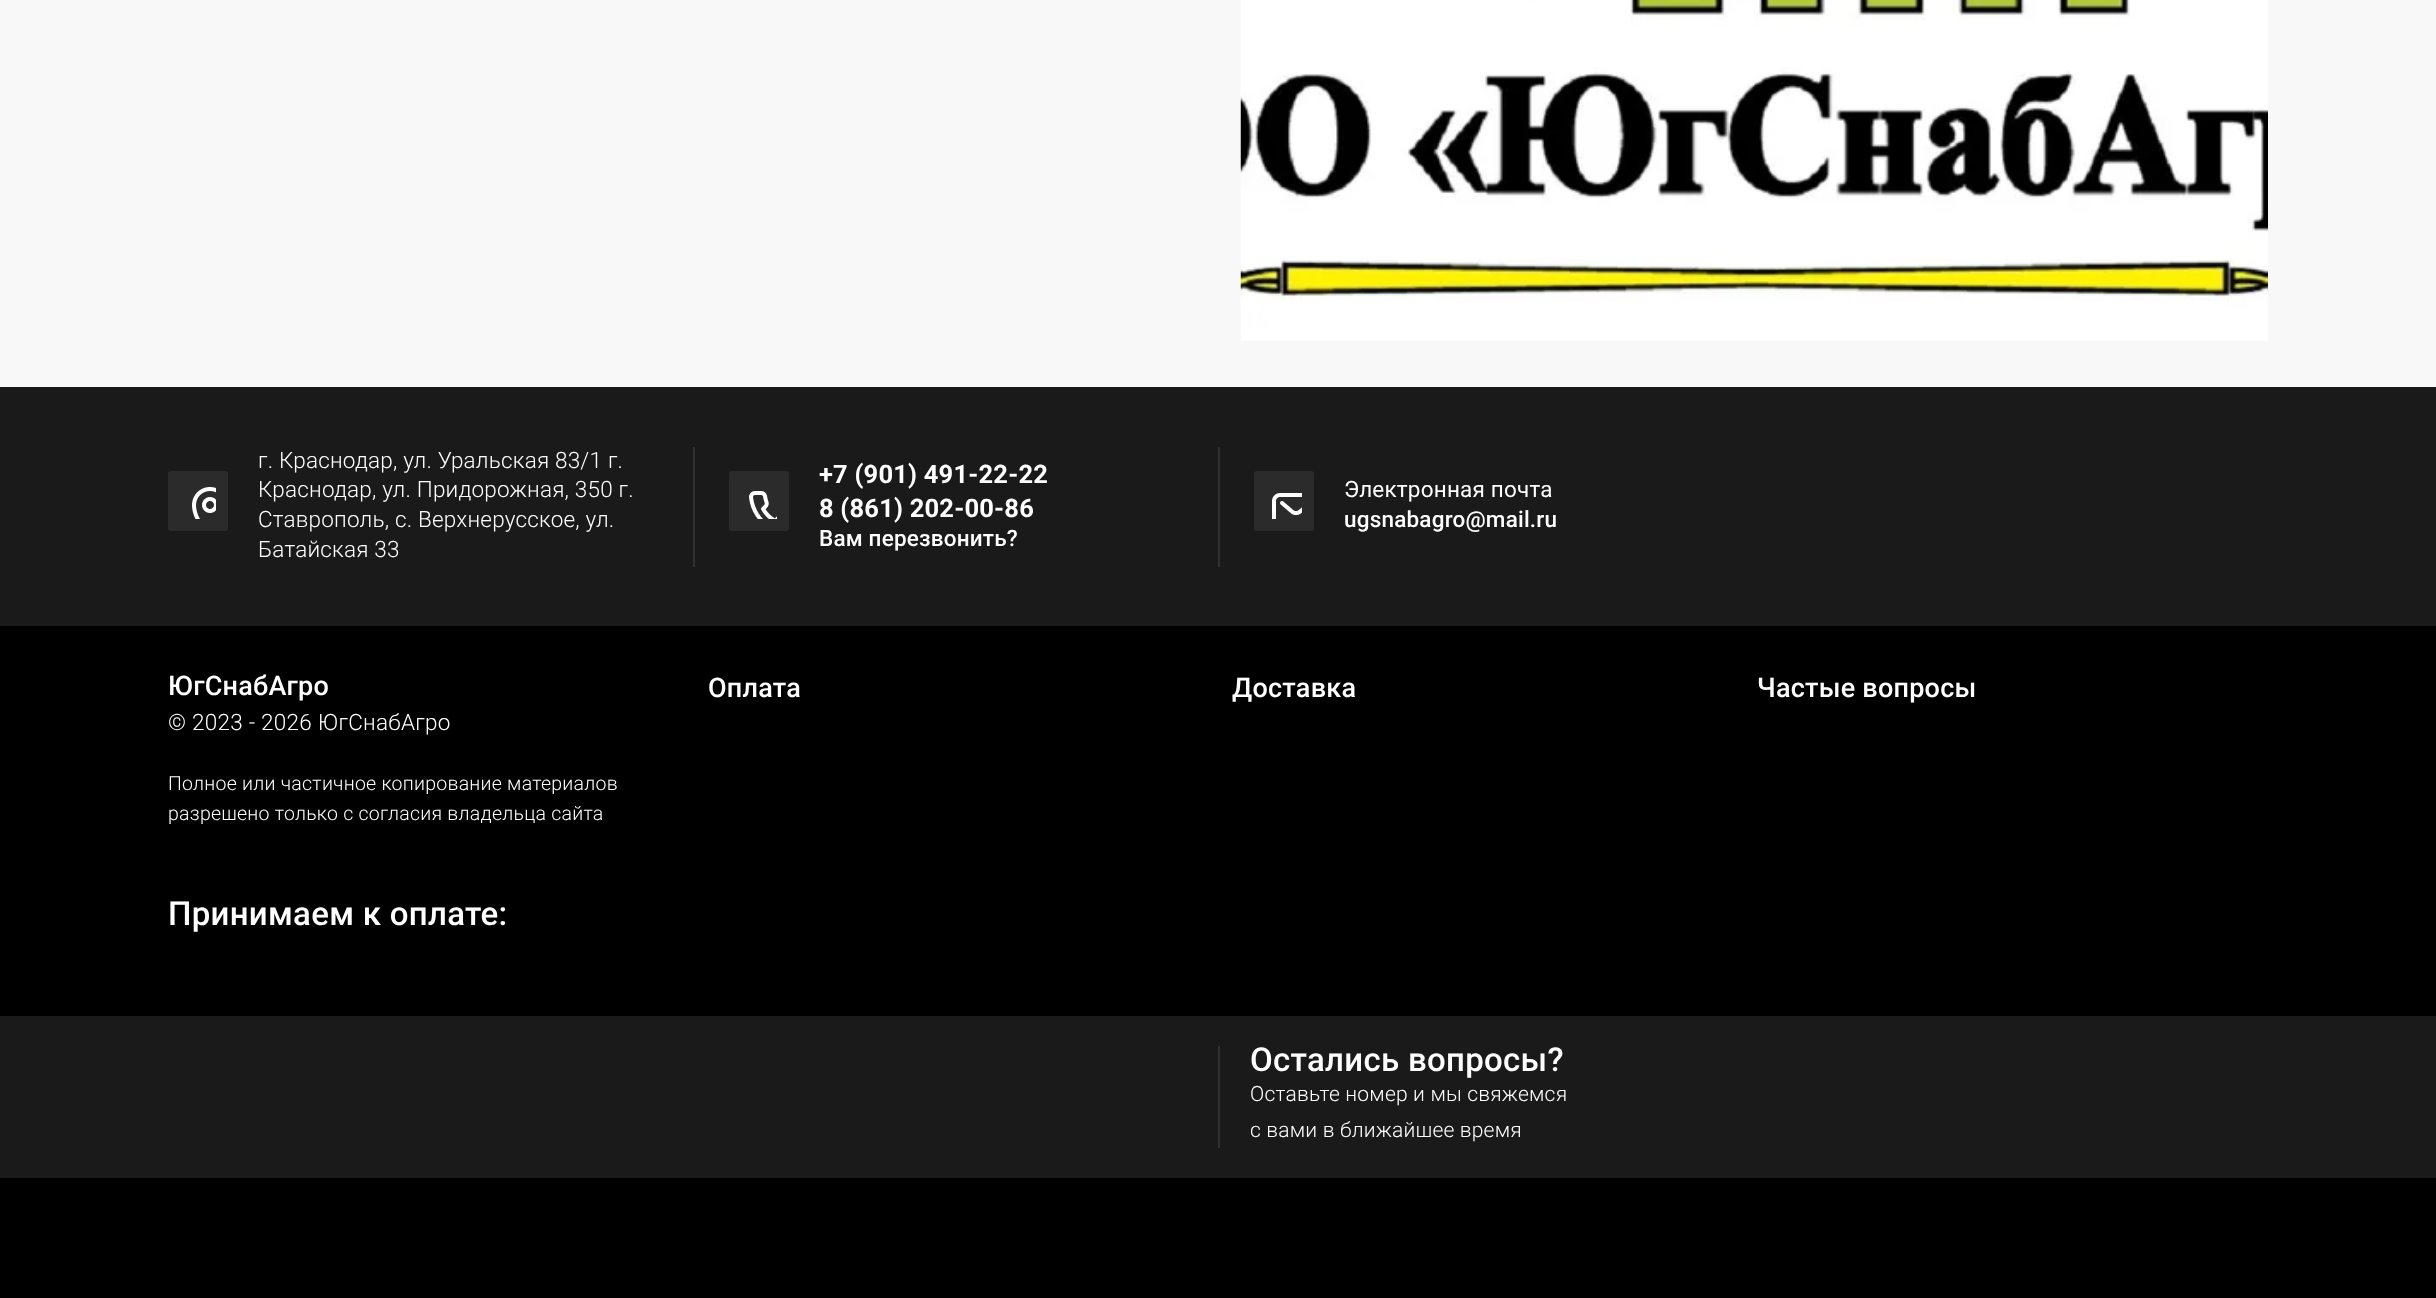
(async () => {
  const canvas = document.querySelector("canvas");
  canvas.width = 2436;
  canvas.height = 1298;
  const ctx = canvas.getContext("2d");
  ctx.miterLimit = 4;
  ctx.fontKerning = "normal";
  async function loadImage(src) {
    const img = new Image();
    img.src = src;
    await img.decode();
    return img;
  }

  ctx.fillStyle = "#f8f8f8";
  ctx.fillRect(0, 0, 2436, 1298);
  ctx.drawImage(await loadImage("img/1.png"), 1240, 0, 1028, 341);
  ctx.fillStyle = "#000000";
  ctx.fillRect(0, 626, 2436, 672);
  ctx.fillStyle = "#1a1a1a";
  ctx.fillRect(0, 387, 2436, 239);
  ctx.fillStyle = "#2b2b2b";
  ctx.beginPath();
  ctx.roundRect(168, 471, 60, 60, 3);
  ctx.fill();
  ctx.drawImage(await loadImage("img/2.png"), 192, 487, 24, 32);
  ctx.fillStyle = "#313131";
  ctx.fillRect(693, 447, 2, 120);
  ctx.fillStyle = "#2b2b2b";
  ctx.beginPath();
  ctx.roundRect(729, 471, 60, 60, 3);
  ctx.fill();
  ctx.drawImage(await loadImage("img/3.png"), 749, 491, 28, 28);
  ctx.fillStyle = "#313131";
  ctx.fillRect(1218, 447, 2, 120);
  ctx.fillStyle = "#2b2b2b";
  ctx.beginPath();
  ctx.roundRect(1254, 471, 60, 60, 3);
  ctx.fill();
  ctx.drawImage(await loadImage("img/4.png"), 1272, 493, 30, 26);
  ctx.fillStyle = "#1a1a1a";
  ctx.fillRect(0, 1016, 2436, 162);
  ctx.fillStyle = "#313131";
  ctx.fillRect(1218, 1046, 2, 102);
  ctx.letterSpacing = "0.2px";
  ctx.font = "300 22.5px Roboto";
  ctx.fillStyle = "#ffffff";
  for (const [text, x, y] of [
    ["г. Краснодар, ул. Уральская 83/1 г.", 258, 468],
    ["Краснодар, ул. Придорожная, 350 г.", 258, 497],
    ["Ставрополь, с. Верхнерусское, ул.", 258, 527],
    ["Батайская 33", 258, 557],
  ]) {
    ctx.fillText(text, x, y);
  }
  ctx.font = "bold 25.5px Roboto";
  ctx.fillText("+7 (901) 491-22-22", 819, 483);
  ctx.fillText("8 (861) 202-00-86", 819, 517);
  ctx.font = "500 22.5px Roboto";
  ctx.fillText("Вам перезвонить?", 819, 546);
  ctx.font = "22.5px Roboto";
  ctx.fillText("Электронная почта", 1344, 497);
  ctx.font = "500 22.5px Roboto";
  ctx.fillText("ugsnabagro@mail.ru", 1344, 527);
  ctx.letterSpacing = "0.25px";
  ctx.font = "500 27px Roboto";
  ctx.fillText("ЮгСнабАгро", 168, 695);
  ctx.font = "300 22.5px Roboto";
  ctx.fillText("© 2023 - 2026 ЮгСнабАгро", 168, 730);
  ctx.font = "300 19.5px Roboto";
  ctx.fillText("Полное или частичное копирование материалов", 168, 790);
  ctx.fillText("разрешено только с согласия владельца сайта", 168, 820);
  ctx.font = "500 27px Roboto";
  for (const [text, x, y] of [
    ["Оплата", 708, 697],
    ["Доставка", 1232, 697],
    ["Частые вопросы", 1757, 697],
  ]) {
    ctx.fillText(text, x, y);
  }
  ctx.letterSpacing = "0.3px";
  ctx.font = "500 33px Roboto";
  ctx.fillText("Принимаем к оплате:", 168, 925);
  ctx.fillText("Остались вопросы?", 1250, 1071);
  ctx.letterSpacing = "0.2px";
  ctx.font = "300 21px Roboto";
  ctx.fillText("Оставьте номер и мы свяжемся", 1250, 1101);
  ctx.fillText("с вами в ближайшее время", 1250, 1137);
})();
